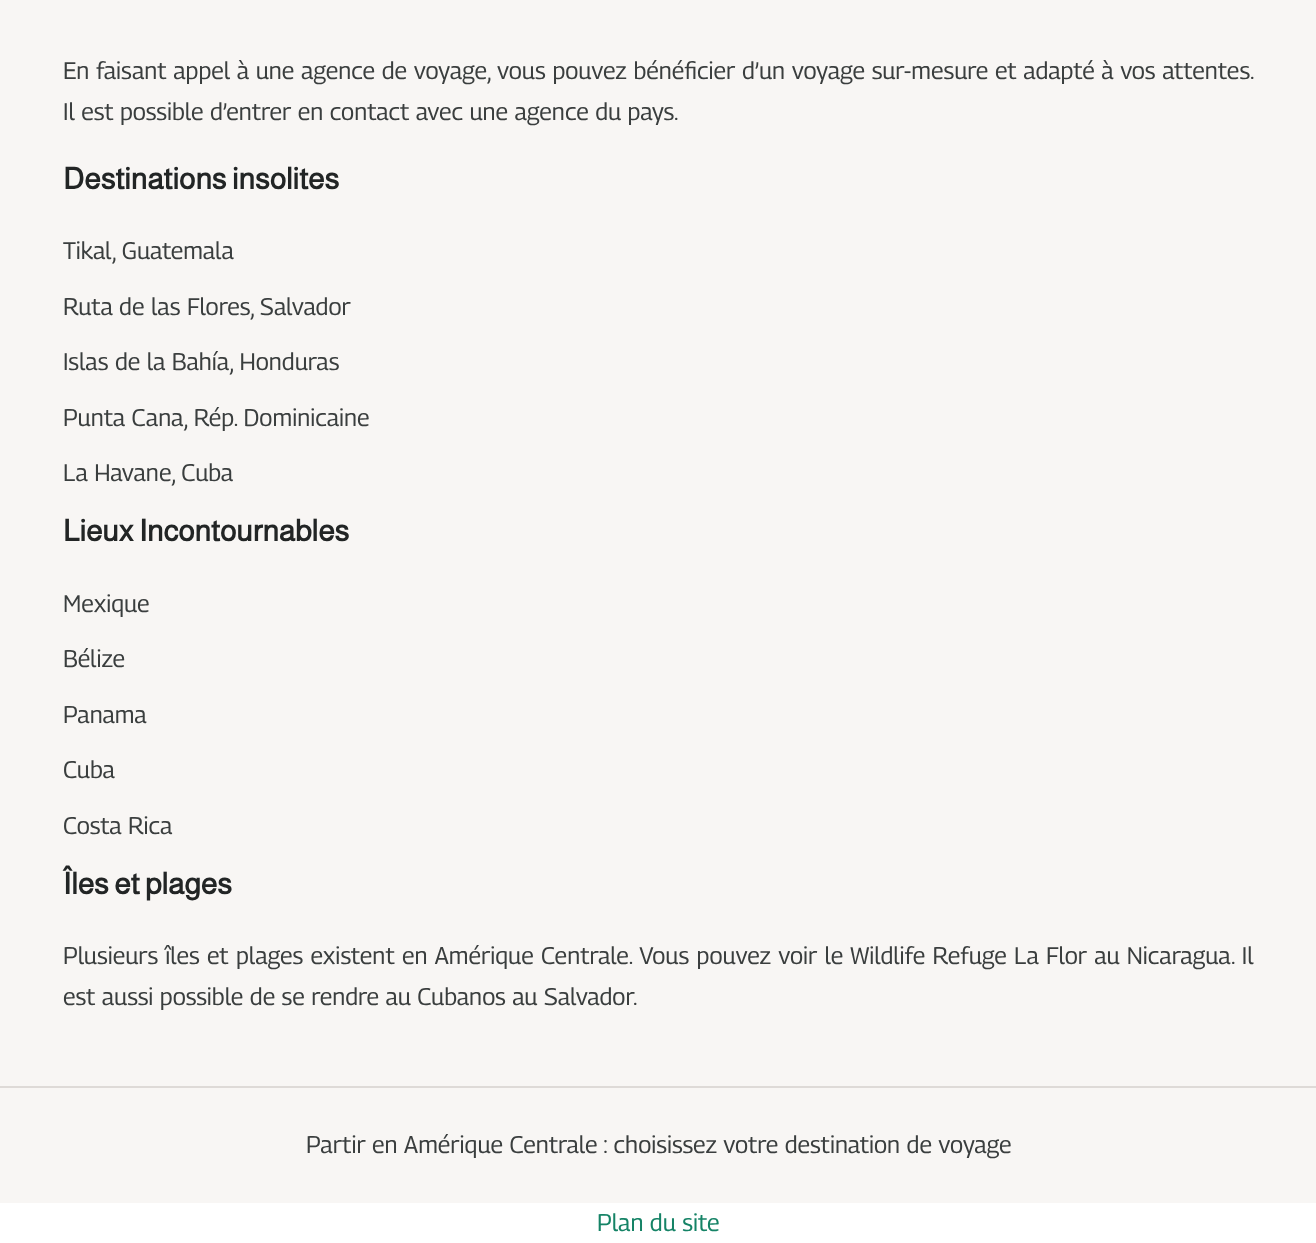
(async () => {
  const canvas = document.querySelector("canvas");
  canvas.width = 1316;
  canvas.height = 1243;
  const ctx = canvas.getContext("2d");
  ctx.miterLimit = 4;
  ctx.fontKerning = "normal";

  ctx.fillStyle = "#ffffff";
  ctx.fillRect(0, 0, 1316, 1243);
  ctx.fillStyle = "#f8f6f4";
  ctx.fillRect(0, 0, 1316, 1203);
  ctx.fillStyle = "#dedad7";
  ctx.fillRect(0, 1086, 1316, 2);
  ctx.wordSpacing = "0.2px";
  ctx.font = "100 24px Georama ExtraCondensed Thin";
  ctx.fillStyle = "#3a3e3e";
  ctx.fillText("En faisant appel à une agence de voyage, vous pouvez bénéficier d’un voyage sur-mesure et adapté à vos attentes.", 63, 79);
  ctx.wordSpacing = "0px";
  ctx.fillText("Il est possible d’entrer en contact avec une agence du pays.", 63, 120);
  ctx.font = "bold 30px Almarai";
  ctx.fillStyle = "#222525";
  ctx.fillText("Destinations insolites", 63, 189);
  ctx.font = "100 24px Georama ExtraCondensed Thin";
  ctx.fillStyle = "#3a3e3e";
  for (const [text, x, y] of [
    ["Tikal, Guatemala", 63, 259],
    ["Ruta de las Flores, Salvador", 63, 315],
    ["Islas de la Bahía, Honduras", 63, 370],
    ["Punta Cana, Rép. Dominicaine", 63, 426],
    ["La Havane, Cuba", 63, 481],
  ]) {
    ctx.fillText(text, x, y);
  }
  ctx.font = "bold 30px Almarai";
  ctx.fillStyle = "#222525";
  ctx.fillText("Lieux Incontournables", 63, 541);
  ctx.font = "100 24px Georama ExtraCondensed Thin";
  ctx.fillStyle = "#3a3e3e";
  for (const [text, x, y] of [
    ["Mexique", 63, 612],
    ["Bélize", 63, 667],
    ["Panama", 63, 723],
    ["Cuba", 63, 778],
    ["Costa Rica", 63, 834],
  ]) {
    ctx.fillText(text, x, y);
  }
  ctx.font = "bold 30px Almarai";
  ctx.fillStyle = "#222525";
  ctx.fillText("Îles et plages", 63, 894);
  ctx.wordSpacing = "0.8px";
  ctx.font = "100 24px Georama ExtraCondensed Thin";
  ctx.fillStyle = "#3a3e3e";
  ctx.fillText("Plusieurs îles et plages existent en Amérique Centrale. Vous pouvez voir le Wildlife Refuge La Flor au Nicaragua. Il", 63, 964);
  ctx.wordSpacing = "0px";
  ctx.fillText("est aussi possible de se rendre au Cubanos au Salvador.", 63, 1005);
  ctx.fillText("Partir en Amérique Centrale : choisissez votre destination de voyage", 306, 1153);
  ctx.fillStyle = "#158366";
  ctx.fillText("Plan du site", 597, 1231);
})();
